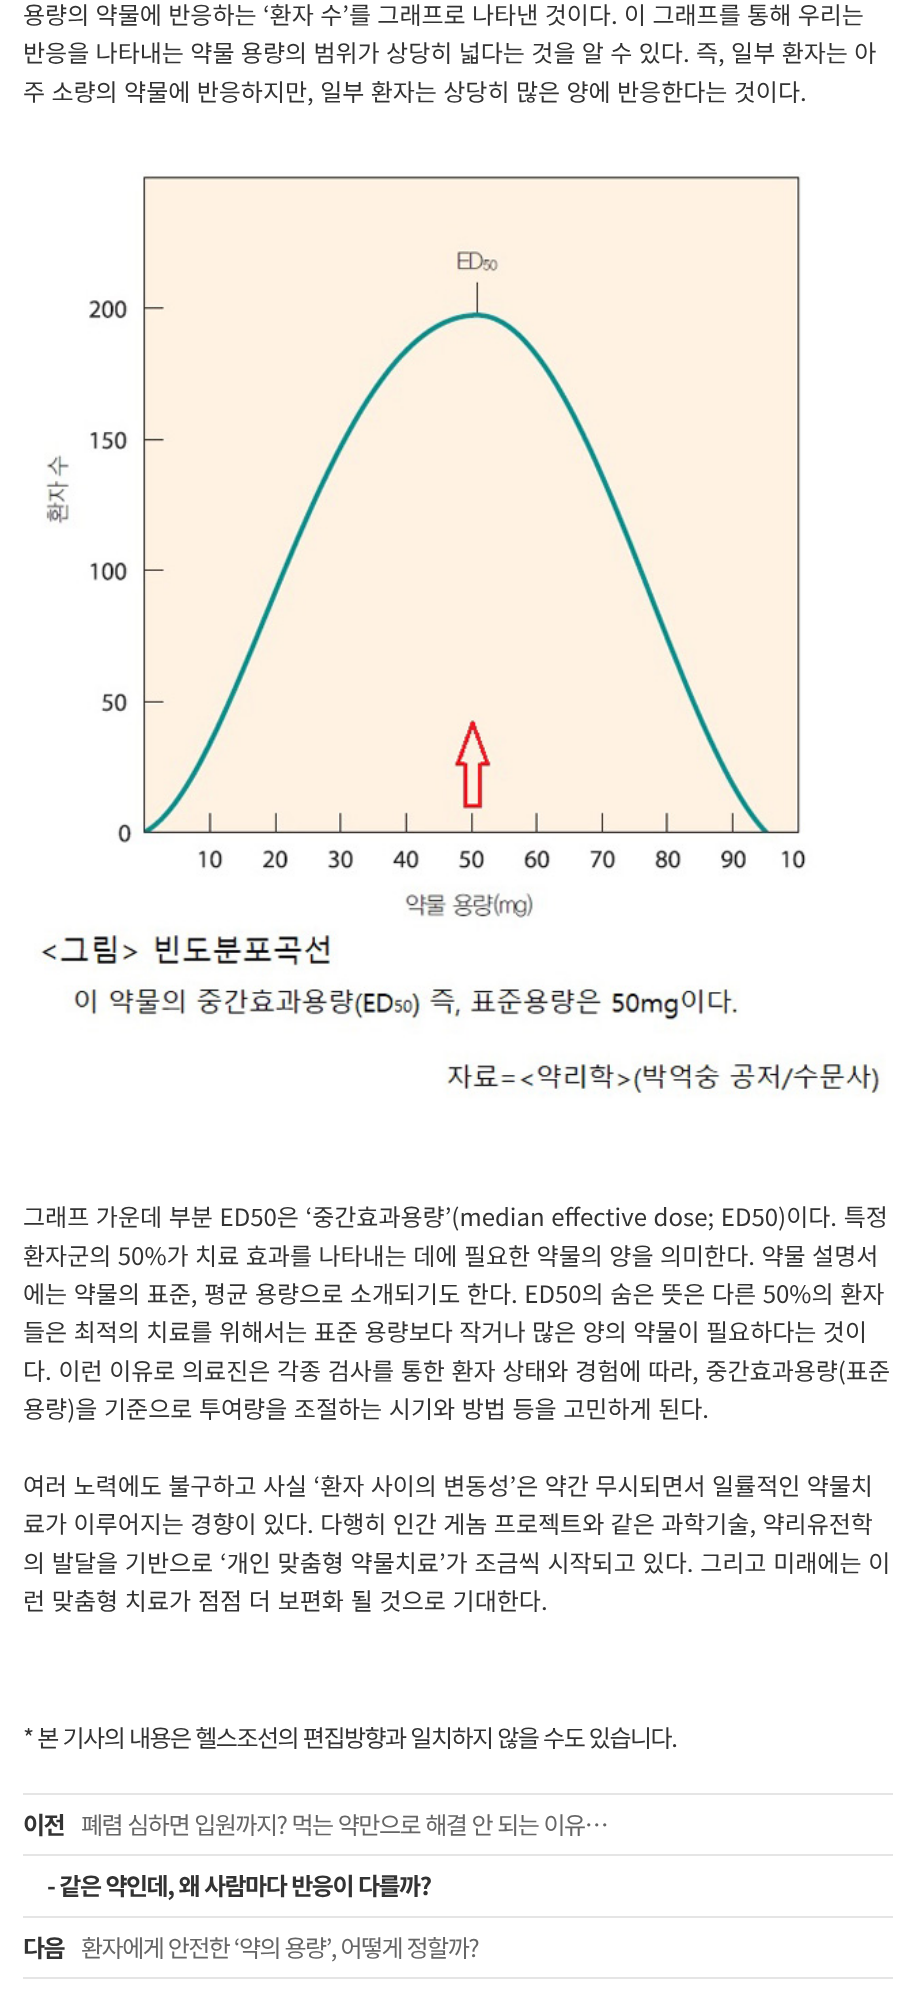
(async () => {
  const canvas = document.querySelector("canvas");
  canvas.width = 914;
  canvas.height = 1993;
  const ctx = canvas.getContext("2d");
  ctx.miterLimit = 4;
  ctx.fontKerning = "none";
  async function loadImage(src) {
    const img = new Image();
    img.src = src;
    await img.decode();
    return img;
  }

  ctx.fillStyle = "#ffffff";
  ctx.fillRect(0, 0, 914, 1993);
  ctx.drawImage(await loadImage("img/1.png"), 34, 172, 852, 927);
  for (const [x, y, w, h, color] of [
    [23, 1793, 870, 2, "#e5e5e5"],
    [23, 1854, 870, 2, "#e5e5e5"],
    [23, 1916, 870, 2, "#e5e5e5"],
    [23, 1977, 870, 2, "#e5e5e5"],
  ]) {
    ctx.fillStyle = color;
    ctx.fillRect(x, y, w, h);
  }
  ctx.wordSpacing = "1px";
  ctx.font = "24px Noto Sans KR";
  ctx.fillStyle = "#333333";
  for (const [text, x, y] of [
    ["용량의 약물에 반응하는 ‘환자 수’를 그래프로 나타낸 것이다. 이 그래프를 통해 우리는", 23, 24],
    ["반응을 나타내는 약물 용량의 범위가 상당히 넓다는 것을 알 수 있다. 즉, 일부 환자는 아", 23, 62],
    ["주 소량의 약물에 반응하지만, 일부 환자는 상당히 많은 양에 반응한다는 것이다.", 23, 101],
  ]) {
    ctx.fillText(text, x, y);
  }
  ctx.wordSpacing = "1.25px";
  ctx.fillText("그래프 가운데 부분 ED50은 ‘중간효과용량’(median effective dose; ED50)이다. 특정", 23, 1226);
  ctx.wordSpacing = "1.1px";
  ctx.fillText("환자군의 50%가 치료 효과를 나타내는 데에 필요한 약물의 양을 의미한다. 약물 설명서", 23, 1265);
  ctx.wordSpacing = "1.25px";
  ctx.fillText("에는 약물의 표준, 평균 용량으로 소개되기도 한다. ED50의 숨은 뜻은 다른 50%의 환자", 23, 1303);
  ctx.wordSpacing = "1.1px";
  ctx.fillText("들은 최적의 치료를 위해서는 표준 용량보다 작거나 많은 양의 약물이 필요하다는 것이", 23, 1341);
  ctx.wordSpacing = "1.25px";
  ctx.fillText("다. 이런 이유로 의료진은 각종 검사를 통한 환자 상태와 경험에 따라, 중간효과용량(표준", 23, 1380);
  ctx.fillText("용량)을 기준으로 투여량을 조절하는 시기와 방법 등을 고민하게 된다.", 23, 1418);
  ctx.wordSpacing = "1px";
  ctx.fillText("여러 노력에도 불구하고 사실 ‘환자 사이의 변동성’은 약간 무시되면서 일률적인 약물치", 23, 1495);
  ctx.fillText("료가 이루어지는 경향이 있다. 다행히 인간 게놈 프로젝트와 같은 과학기술, 약리유전학", 23, 1533);
  ctx.wordSpacing = "1.4px";
  ctx.fillText("의 발달을 기반으로 ‘개인 맞춤형 약물치료’가 조금씩 시작되고 있다. 그리고 미래에는 이", 23, 1572);
  ctx.fillText("런 맞춤형 치료가 점점 더 보편화 될 것으로 기대한다.", 23, 1610);
  ctx.letterSpacing = "-1.5px";
  ctx.wordSpacing = "0.75px";
  ctx.fillText("* 본 기사의 내용은 헬스조선의 편집방향과 일치하지 않을 수도 있습니다.", 23, 1747);
  ctx.wordSpacing = "0px";
  ctx.font = "bold 24px Noto Sans KR";
  ctx.fillText("이전", 23, 1834);
  ctx.wordSpacing = "1.25px";
  ctx.font = "24px Noto Sans KR";
  ctx.fillStyle = "#666666";
  ctx.fillText("폐렴 심하면 입원까지? 먹는 약만으로 해결 안 되는 이유…", 81, 1834);
  ctx.wordSpacing = "1px";
  ctx.font = "bold 24px Noto Sans KR";
  ctx.fillStyle = "#333333";
  ctx.fillText("- 같은 약인데, 왜 사람마다 반응이 다를까?", 47, 1895);
  ctx.wordSpacing = "0px";
  ctx.fillText("다음", 23, 1957);
  ctx.wordSpacing = "0.5px";
  ctx.font = "24px Noto Sans KR";
  ctx.fillStyle = "#666666";
  ctx.fillText("환자에게 안전한 ‘약의 용량’, 어떻게 정할까?", 81, 1957);
})();
